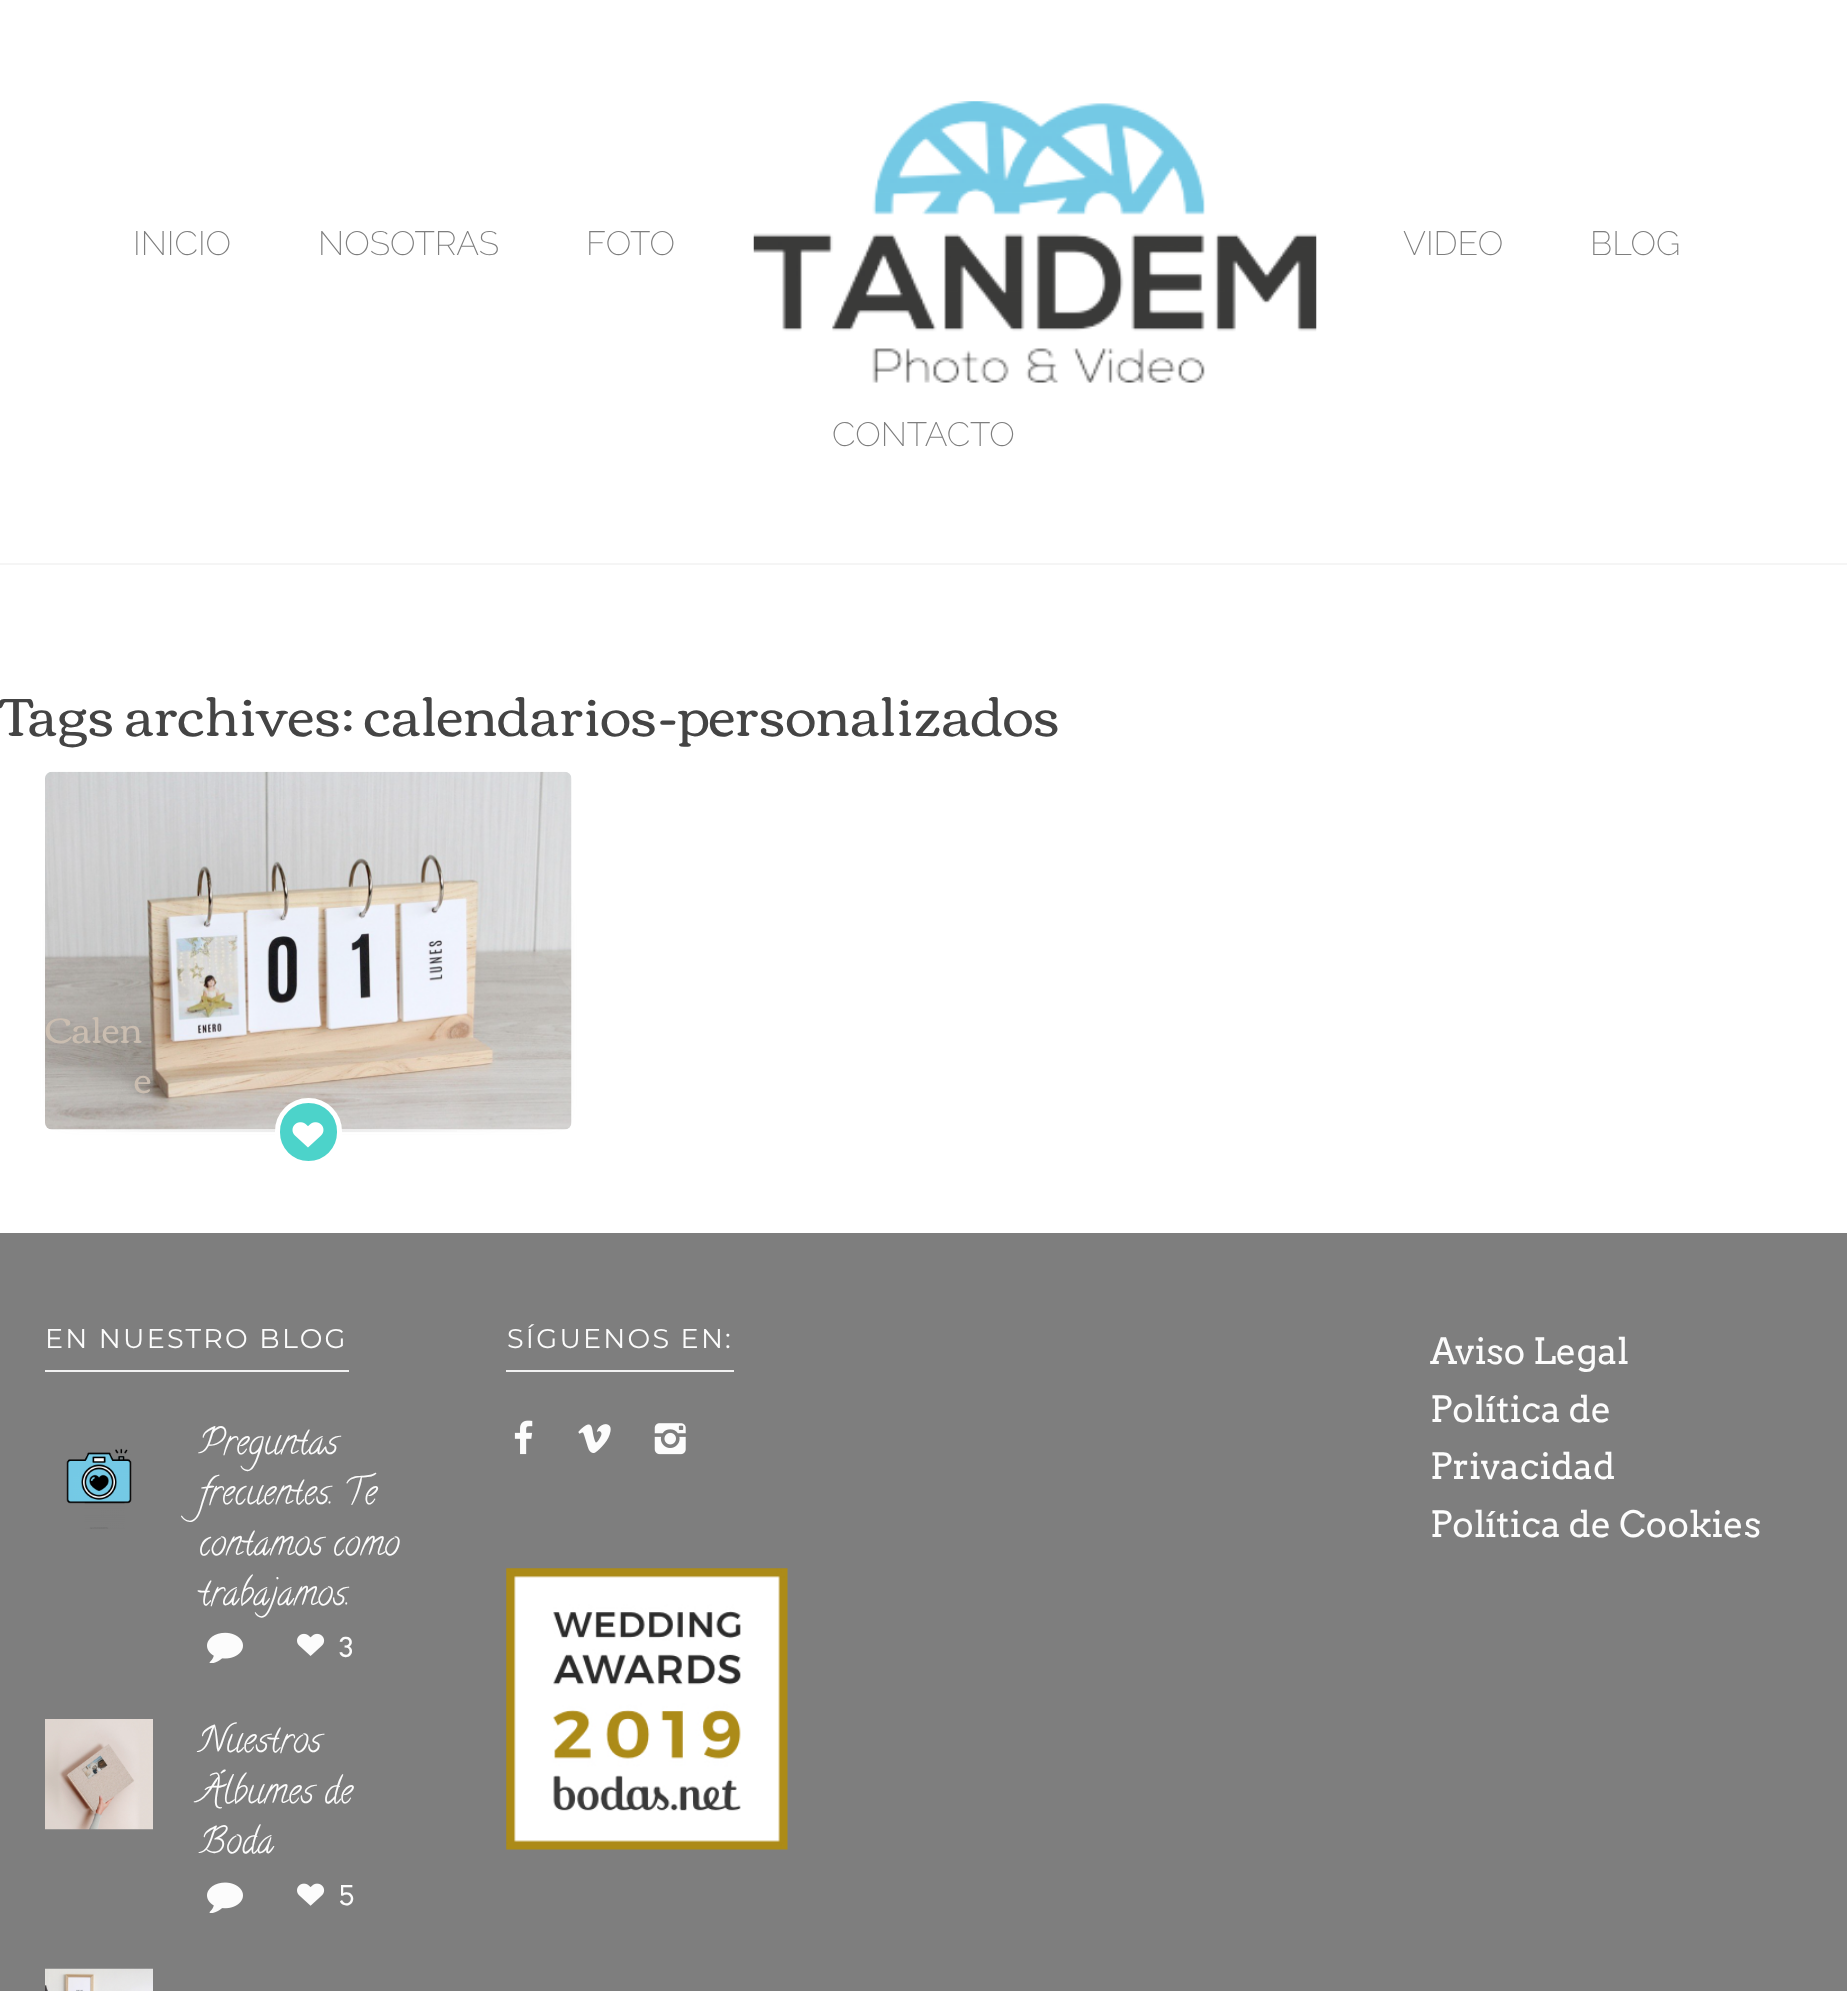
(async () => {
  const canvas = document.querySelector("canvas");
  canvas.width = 1847;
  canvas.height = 1991;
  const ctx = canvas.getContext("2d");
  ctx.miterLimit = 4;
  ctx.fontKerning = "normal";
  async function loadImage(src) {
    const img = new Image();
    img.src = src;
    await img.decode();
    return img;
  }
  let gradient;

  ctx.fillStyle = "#ffffff";
  ctx.fillRect(0, 0, 1847, 1991);
  ctx.fillStyle = "#f5f5f5";
  ctx.fillRect(0, 563, 1847, 2);
  ctx.drawImage(await loadImage("img/1.png"), 753, 101, 564, 282);
  ctx.fillStyle = "#777777";
  ctx.filter = "blur(11.5px)";
  ctx.beginPath();
  ctx.rect(68, 914, 420, 193);
  ctx.fill();
  ctx.filter = "none";
  ctx.filter = "blur(11.5px)";
  ctx.beginPath();
  ctx.rect(128, 914, 421, 193);
  ctx.fill();
  ctx.filter = "none";
  ctx.drawImage(await loadImage("img/2.png"), 45, 771, 527, 359);
  gradient = ctx.createLinearGradient(79, 1131, 538, 1131);
  gradient.addColorStop(0, "rgba(235, 235, 235, 0)");
  gradient.addColorStop(0.3, "rgba(235, 235, 235, 0.6)");
  gradient.addColorStop(0.5, "#ebebeb");
  gradient.addColorStop(0.7, "rgba(235, 235, 235, 0.6)");
  gradient.addColorStop(0.99, "rgba(255, 255, 255, 0.02)");
  gradient.addColorStop(1, "rgba(255, 255, 255, 0)");
  ctx.fillStyle = gradient;
  ctx.fillRect(106, 1130, 351, 2);
  ctx.fillStyle = "#4cd3ca";
  ctx.beginPath();
  ctx.roundRect(277.5, 1100.5, 62, 63, 31);
  ctx.fill();
  ctx.strokeStyle = "#ffffff";
  ctx.lineWidth = 5;
  ctx.stroke();
  ctx.drawImage(await loadImage("img/3.png"), 292, 1122, 32, 26);
  ctx.fillStyle = "#7e7e7e";
  ctx.fillRect(0, 1233, 1847, 758);
  ctx.fillStyle = "#f1f1f1";
  ctx.fillRect(45, 1370, 304, 2);
  ctx.drawImage(await loadImage("img/4.png"), 66, 1448, 66, 81);
  ctx.drawImage(await loadImage("img/5.png"), 207, 1632, 36, 31);
  ctx.drawImage(await loadImage("img/6.png"), 297, 1633, 28, 23);
  ctx.drawImage(await loadImage("img/7.png"), 45, 1719, 108, 111);
  ctx.drawImage(await loadImage("img/8.png"), 207, 1882, 36, 31);
  ctx.drawImage(await loadImage("img/9.png"), 297, 1883, 28, 23);
  ctx.drawImage(await loadImage("img/10.png"), 45, 1968, 108, 23);
  ctx.fillRect(506, 1370, 228, 2);
  ctx.drawImage(await loadImage("img/11.png"), 514, 1420, 19, 35);
  ctx.drawImage(await loadImage("img/12.png"), 578, 1424, 33, 29);
  ctx.drawImage(await loadImage("img/13.png"), 654, 1423, 32, 32);
  ctx.drawImage(await loadImage("img/14.png"), 506, 1568, 282, 282);
  ctx.font = "200 33.75px Raleway";
  ctx.fillStyle = "#7e7e7e";
  for (const [text, x, y] of [
    ["INICIO", 133, 255],
    ["NOSOTRAS", 318, 255],
    ["FOTO", 586, 255],
    ["VIDEO", 1403, 255],
    ["BLOG", 1590, 255],
    ["CONTACTO", 832, 446],
  ]) {
    ctx.fillText(text, x, y);
  }
  ctx.font = "54px Corben";
  ctx.fillStyle = "#444444";
  ctx.fillText("Tags archives: calendarios-personalizados", 0, 736);
  ctx.font = "36px Corben";
  ctx.fillStyle = "#cabdb0";
  ctx.fillText("Calen", 45, 1043);
  ctx.fillText("e", 134, 1093);
  ctx.letterSpacing = "2.25px";
  ctx.font = "27px Montserrat";
  ctx.fillStyle = "#fcfcfc";
  ctx.fillText("EN NUESTRO BLOG", 45, 1348);
  ctx.letterSpacing = "0px";
  ctx.font = "36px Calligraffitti";
  for (const [text, x, y] of [
    ["Preguntas", 199, 1453],
    ["frecuentes. Te", 199, 1503],
    ["contamos como", 199, 1554],
    ["trabajamos.", 199, 1604],
  ]) {
    ctx.fillText(text, x, y);
  }
  ctx.font = "27px Arvo";
  ctx.fillText("3", 339, 1657);
  ctx.font = "36px Calligraffitti";
  for (const [text, x, y] of [
    ["Nuestros", 199, 1751],
    ["Álbumes de", 199, 1802],
    ["Boda", 199, 1852],
  ]) {
    ctx.fillText(text, x, y);
  }
  ctx.font = "27px Arvo";
  ctx.fillText("5", 339, 1905);
  ctx.letterSpacing = "2.25px";
  ctx.font = "27px Montserrat";
  ctx.fillText("SÍGUENOS EN:", 507, 1348);
  ctx.letterSpacing = "0px";
  ctx.font = "36px Arvo";
  for (const [text, x, y] of [
    ["Aviso Legal", 1430, 1364],
    ["Política de", 1430, 1422],
    ["Privacidad", 1430, 1479],
    ["Política de Cookies", 1430, 1537],
  ]) {
    ctx.fillText(text, x, y);
  }
})();
